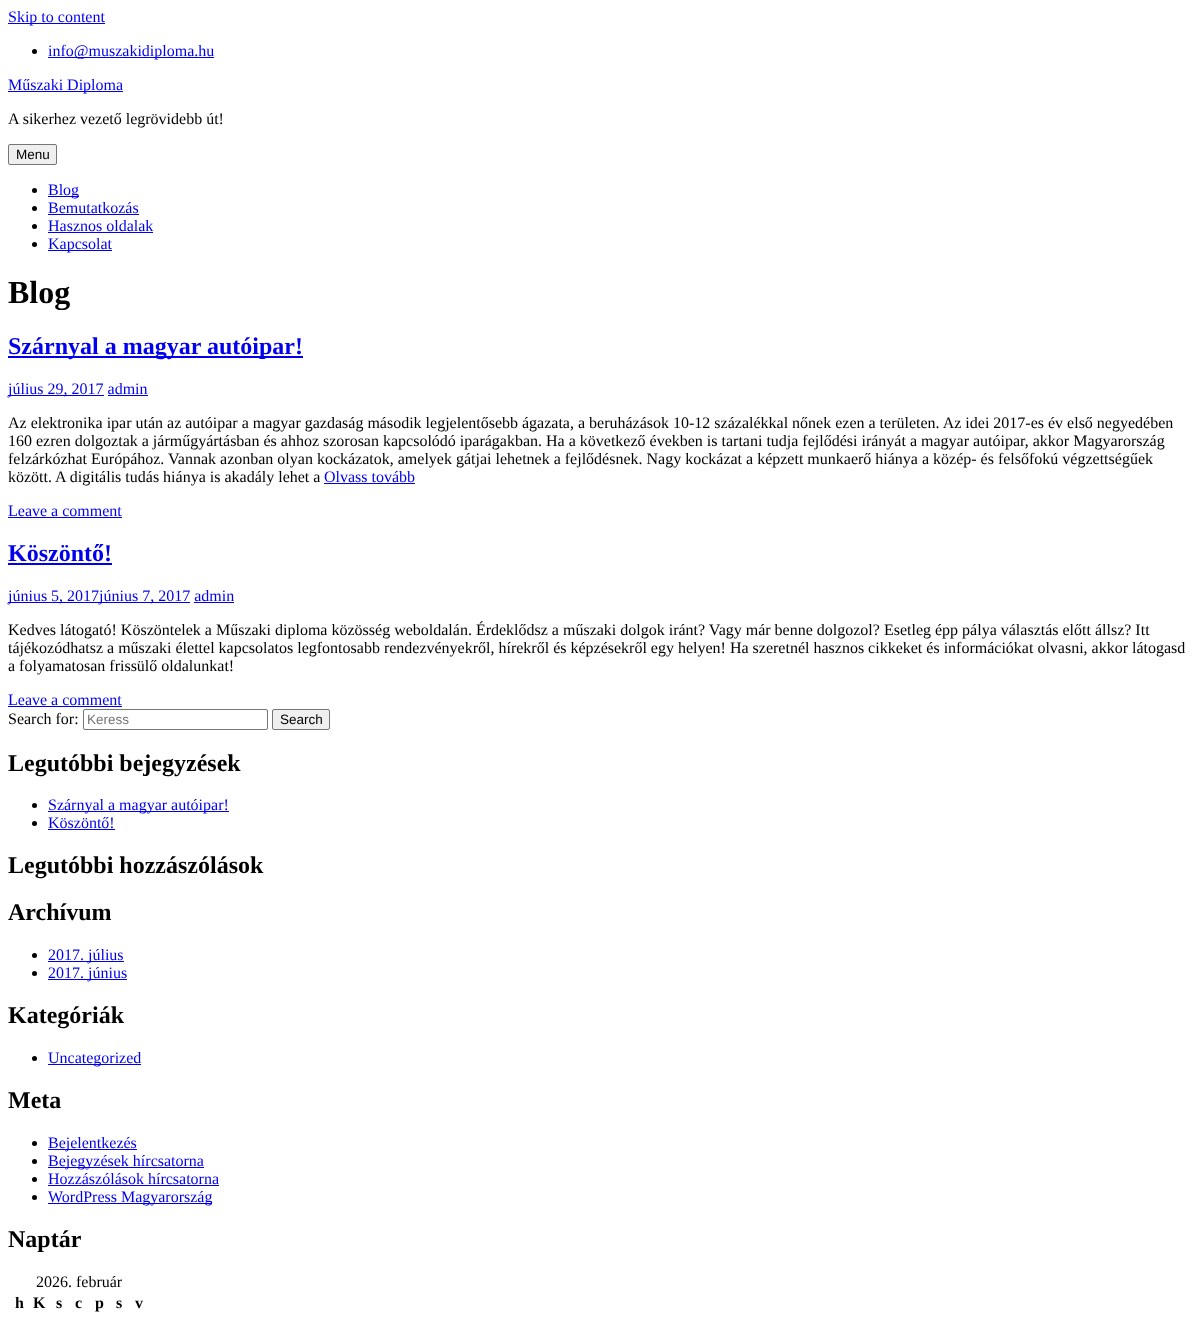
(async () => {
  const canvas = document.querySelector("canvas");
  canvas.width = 1195;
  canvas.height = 1322;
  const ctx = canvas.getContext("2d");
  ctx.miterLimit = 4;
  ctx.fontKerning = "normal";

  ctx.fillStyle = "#ffffff";
  ctx.fillRect(0, 0, 1195, 1322);
  ctx.fillStyle = "#0000ee";
  ctx.fillRect(8, 23, 97, 1);
  ctx.fillStyle = "#000000";
  ctx.beginPath();
  ctx.arc(34.5, 51.5, 2.5, 0, Math.PI * 2);
  ctx.fill();
  ctx.fillStyle = "#0000ee";
  ctx.fillRect(48, 57, 166, 1);
  ctx.fillRect(8, 91, 115, 1);
  ctx.fillStyle = "#efefef";
  ctx.beginPath();
  ctx.roundRect(8.5, 144.5, 48, 20, 1.5);
  ctx.fill();
  ctx.strokeStyle = "#767676";
  ctx.stroke();
  ctx.fillStyle = "#000000";
  ctx.beginPath();
  ctx.arc(34.5, 190.5, 2.5, 0, Math.PI * 2);
  ctx.fill();
  ctx.fillStyle = "#0000ee";
  ctx.fillRect(48, 196, 31, 1);
  ctx.fillStyle = "#000000";
  ctx.beginPath();
  ctx.arc(34.5, 208.5, 2.5, 0, Math.PI * 2);
  ctx.fill();
  ctx.fillStyle = "#0000ee";
  ctx.fillRect(48, 214, 91, 1);
  ctx.fillStyle = "#000000";
  ctx.beginPath();
  ctx.arc(34.5, 226.5, 2.5, 0, Math.PI * 2);
  ctx.fill();
  ctx.fillStyle = "#0000ee";
  ctx.fillRect(48, 232, 105, 1);
  ctx.fillStyle = "#000000";
  ctx.beginPath();
  ctx.arc(34.5, 244.5, 2.5, 0, Math.PI * 2);
  ctx.fill();
  for (const [x, y, w, h, color] of [
    [48, 250, 64, 1, "#0000ee"],
    [8, 356, 295, 2, "#0000ee"],
    [8, 395, 96, 1, "#0000ee"],
    [108, 395, 40, 1, "#0000ee"],
    [324, 483, 91, 1, "#0000ee"],
    [8, 517, 114, 1, "#0000ee"],
    [8, 563, 104, 2, "#0000ee"],
    [8, 602, 182, 1, "#0000ee"],
    [194, 602, 40, 1, "#0000ee"],
    [8, 706, 114, 1, "#0000ee"],
  ]) {
    ctx.fillStyle = color;
    ctx.fillRect(x, y, w, h);
  }
  ctx.beginPath();
  ctx.roundRect(83.5, 709.5, 184, 20, 1.5);
  ctx.stroke();
  ctx.fillStyle = "#efefef";
  ctx.beginPath();
  ctx.roundRect(272.5, 709.5, 57, 20, 1.5);
  ctx.fill();
  ctx.stroke();
  ctx.fillStyle = "#000000";
  ctx.beginPath();
  ctx.arc(34.5, 805.5, 2.5, 0, Math.PI * 2);
  ctx.fill();
  ctx.fillStyle = "#0000ee";
  ctx.fillRect(48, 811, 181, 1);
  ctx.fillStyle = "#000000";
  ctx.beginPath();
  ctx.arc(34.5, 823.5, 2.5, 0, Math.PI * 2);
  ctx.fill();
  ctx.fillStyle = "#0000ee";
  ctx.fillRect(48, 829, 67, 1);
  ctx.fillStyle = "#000000";
  ctx.beginPath();
  ctx.arc(34.5, 955.5, 2.5, 0, Math.PI * 2);
  ctx.fill();
  ctx.fillStyle = "#0000ee";
  ctx.fillRect(48, 961, 76, 1);
  ctx.fillStyle = "#000000";
  ctx.beginPath();
  ctx.arc(34.5, 973.5, 2.5, 0, Math.PI * 2);
  ctx.fill();
  ctx.fillStyle = "#0000ee";
  ctx.fillRect(48, 979, 79, 1);
  ctx.fillStyle = "#000000";
  ctx.beginPath();
  ctx.arc(34.5, 1058.5, 2.5, 0, Math.PI * 2);
  ctx.fill();
  ctx.fillStyle = "#0000ee";
  ctx.fillRect(48, 1064, 93, 1);
  ctx.fillStyle = "#000000";
  ctx.beginPath();
  ctx.arc(34.5, 1143.5, 2.5, 0, Math.PI * 2);
  ctx.fill();
  ctx.fillStyle = "#0000ee";
  ctx.fillRect(48, 1149, 89, 1);
  ctx.fillStyle = "#000000";
  ctx.beginPath();
  ctx.arc(34.5, 1161.5, 2.5, 0, Math.PI * 2);
  ctx.fill();
  ctx.fillStyle = "#0000ee";
  ctx.fillRect(48, 1167, 156, 1);
  ctx.fillStyle = "#000000";
  ctx.beginPath();
  ctx.arc(34.5, 1179.5, 2.5, 0, Math.PI * 2);
  ctx.fill();
  ctx.fillStyle = "#0000ee";
  ctx.fillRect(48, 1185, 171, 1);
  ctx.fillStyle = "#000000";
  ctx.beginPath();
  ctx.arc(34.5, 1197.5, 2.5, 0, Math.PI * 2);
  ctx.fill();
  ctx.fillStyle = "#0000ee";
  ctx.fillRect(48, 1203, 164, 1);
  ctx.font = "16px Liberation Serif";
  for (const [text, x, y] of [
    ["Skip to content", 8, 22],
    ["info@muszakidiploma.hu", 48, 56],
    ["Műszaki Diploma", 8, 90],
  ]) {
    ctx.fillText(text, x, y);
  }
  ctx.fillStyle = "#000000";
  ctx.fillText("A sikerhez vezető legrövidebb út!", 8, 124);
  ctx.font = "13.5px Liberation Sans";
  ctx.fillText("Menu", 16, 159);
  ctx.font = "16px Liberation Serif";
  ctx.fillStyle = "#0000ee";
  for (const [text, x, y] of [
    ["Blog", 48, 195],
    ["Bemutatkozás", 48, 213],
    ["Hasznos oldalak", 48, 231],
    ["Kapcsolat", 48, 249],
  ]) {
    ctx.fillText(text, x, y);
  }
  ctx.font = "bold 32px Liberation Serif";
  ctx.fillStyle = "#000000";
  ctx.fillText("Blog", 8, 303);
  ctx.font = "bold 24px Liberation Serif";
  ctx.fillStyle = "#0000ee";
  ctx.fillText("Szárnyal a magyar autóipar!", 8, 354);
  ctx.font = "16px Liberation Serif";
  ctx.fillText("július 29, 2017 admin", 8, 394);
  ctx.fillStyle = "#000000";
  for (const [text, x, y] of [
    ["Az elektronika ipar után az autóipar a magyar gazdaság második legjelentősebb ágazata, a beruházások 10-12 százalékkal nőnek ezen a területen. Az idei 2017-es év első negyedében", 8, 428],
    ["160 ezren dolgoztak a járműgyártásban és ahhoz szorosan kapcsolódó iparágakban. Ha a következő években is tartani tudja fejlődési irányát a magyar autóipar, akkor Magyarország", 8, 446],
    ["felzárkózhat Európához. Vannak azonban olyan kockázatok, amelyek gátjai lehetnek a fejlődésnek. Nagy kockázat a képzett munkaerő hiánya a közép- és felsőfokú végzettségűek", 8, 464],
    ["között. A digitális tudás hiánya is akadály lehet a", 8, 482],
  ]) {
    ctx.fillText(text, x, y);
  }
  ctx.fillStyle = "#0000ee";
  ctx.fillText("Olvass tovább", 324, 482);
  ctx.fillText("Leave a comment", 8, 516);
  ctx.font = "bold 24px Liberation Serif";
  ctx.fillText("Köszöntő!", 8, 561);
  ctx.font = "16px Liberation Serif";
  ctx.fillText("június 5, 2017június 7, 2017 admin", 8, 601);
  ctx.fillStyle = "#000000";
  for (const [text, x, y] of [
    ["Kedves látogató! Köszöntelek a Műszaki diploma közösség weboldalán. Érdeklődsz a műszaki dolgok iránt? Vagy már benne dolgozol? Esetleg épp pálya választás előtt állsz? Itt", 8, 635],
    ["tájékozódhatsz a műszaki élettel kapcsolatos legfontosabb rendezvényekről, hírekről és képzésekről egy helyen! Ha szeretnél hasznos cikkeket és információkat olvasni, akkor látogasd", 8, 653],
    ["a folyamatosan frissülő oldalunkat!", 8, 671],
  ]) {
    ctx.fillText(text, x, y);
  }
  ctx.fillStyle = "#0000ee";
  ctx.fillText("Leave a comment", 8, 705);
  ctx.fillStyle = "#000000";
  ctx.fillText("Search for:", 8, 724);
  ctx.font = "13.5px Liberation Sans";
  ctx.fillStyle = "#757575";
  ctx.fillText("Keress", 87, 724);
  ctx.fillStyle = "#000000";
  ctx.fillText("Search", 280, 724);
  ctx.font = "bold 24px Liberation Serif";
  ctx.fillText("Legutóbbi bejegyzések", 8, 771);
  ctx.font = "16px Liberation Serif";
  ctx.fillStyle = "#0000ee";
  ctx.fillText("Szárnyal a magyar autóipar!", 48, 810);
  ctx.fillText("Köszöntő!", 48, 828);
  ctx.font = "bold 24px Liberation Serif";
  ctx.fillStyle = "#000000";
  ctx.fillText("Legutóbbi hozzászólások", 8, 873);
  ctx.fillText("Archívum", 8, 920);
  ctx.font = "16px Liberation Serif";
  ctx.fillStyle = "#0000ee";
  ctx.fillText("2017. július", 48, 960);
  ctx.fillText("2017. június", 48, 978);
  ctx.font = "bold 24px Liberation Serif";
  ctx.fillStyle = "#000000";
  ctx.fillText("Kategóriák", 8, 1023);
  ctx.font = "16px Liberation Serif";
  ctx.fillStyle = "#0000ee";
  ctx.fillText("Uncategorized", 48, 1063);
  ctx.font = "bold 24px Liberation Serif";
  ctx.fillStyle = "#000000";
  ctx.fillText("Meta", 8, 1108);
  ctx.font = "16px Liberation Serif";
  ctx.fillStyle = "#0000ee";
  for (const [text, x, y] of [
    ["Bejelentkezés", 48, 1148],
    ["Bejegyzések hírcsatorna", 48, 1166],
    ["Hozzászólások hírcsatorna", 48, 1184],
    ["WordPress Magyarország", 48, 1202],
  ]) {
    ctx.fillText(text, x, y);
  }
  ctx.font = "bold 24px Liberation Serif";
  ctx.fillStyle = "#000000";
  ctx.fillText("Naptár", 8, 1247);
  ctx.font = "16px Liberation Serif";
  ctx.fillText("2026. február", 36, 1287);
  ctx.font = "bold 16px Liberation Serif";
  for (const [text, x, y] of [
    ["h", 15, 1308],
    ["K", 33, 1308],
    ["s", 56, 1308],
    ["c", 75, 1308],
    ["p", 95, 1308],
    ["s", 116, 1308],
    ["v", 135, 1308],
  ]) {
    ctx.fillText(text, x, y);
  }
})();
